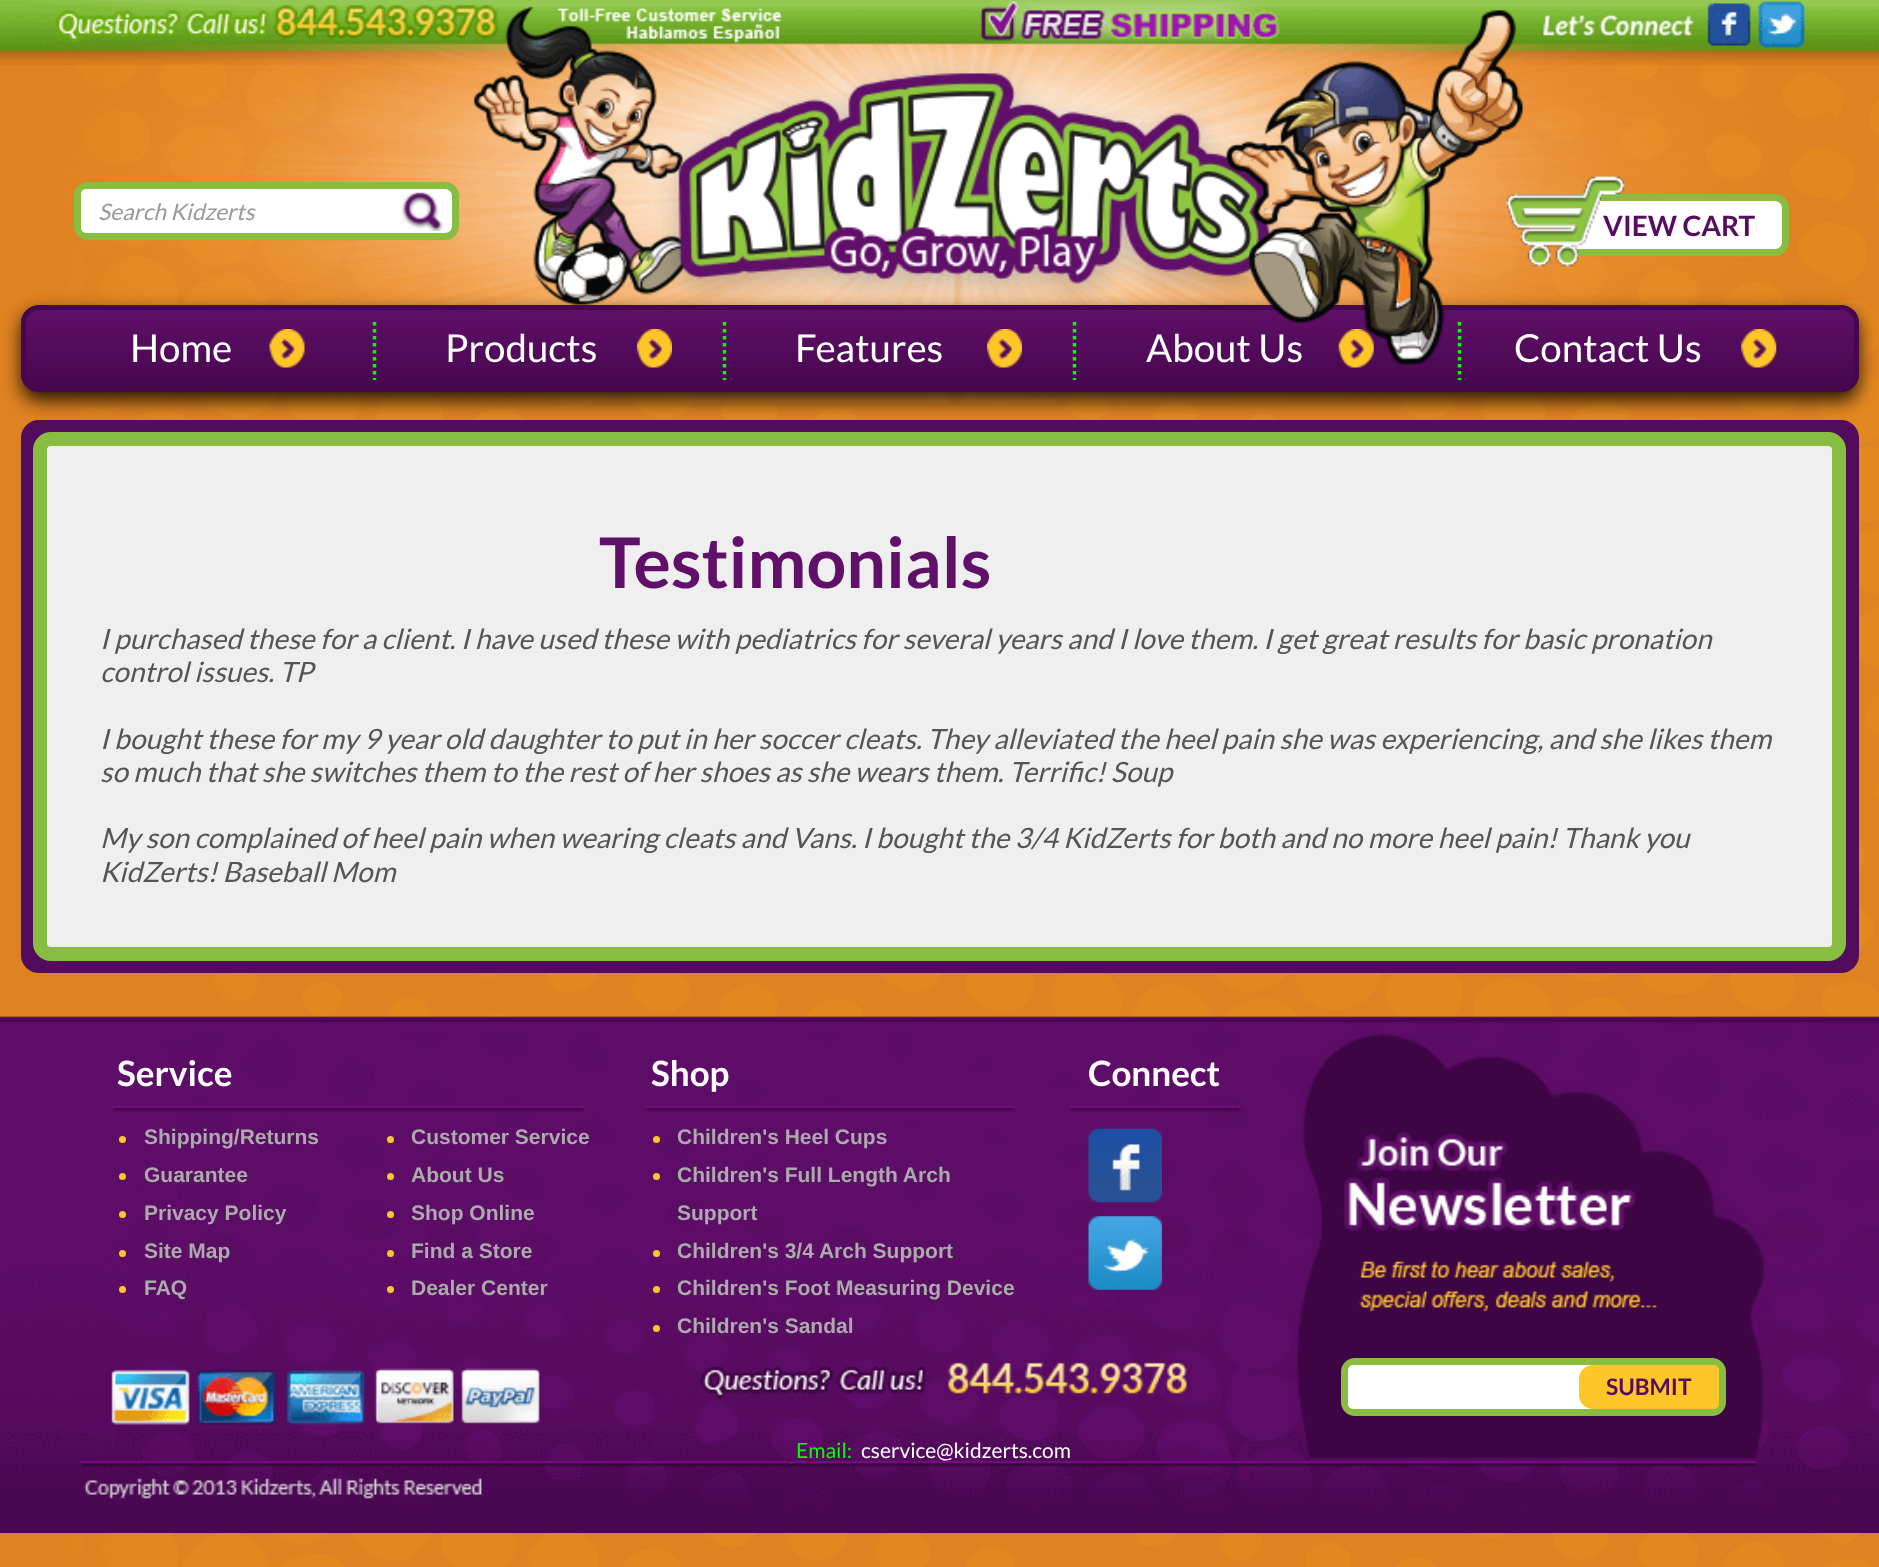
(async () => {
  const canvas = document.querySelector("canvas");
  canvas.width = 1879;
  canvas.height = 1567;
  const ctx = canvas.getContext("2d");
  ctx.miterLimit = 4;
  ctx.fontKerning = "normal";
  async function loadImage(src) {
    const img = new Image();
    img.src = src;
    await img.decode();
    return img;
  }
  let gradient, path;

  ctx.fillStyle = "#df8221";
  ctx.fillRect(0, 0, 1879, 1567);
  ctx.drawImage(await loadImage("img/1.png"), 0, 0, 1879, 65);
  ctx.drawImage(await loadImage("img/2.png"), 68, 63, 1811, 1504);
  ctx.drawImage(await loadImage("img/3.png"), 54, 1, 1751, 402);
  ctx.fillStyle = "rgba(0, 0, 0, 0.8)";
  ctx.filter = "blur(9px)";
  ctx.beginPath();
  ctx.roundRect(21, 313, 1838, 88, 18);
  ctx.fill();
  ctx.filter = "none";
  ctx.save();
  ctx.beginPath();
  ctx.roundRect(21, 305, 1838, 87, 18);
  ctx.clip();
  gradient = ctx.createLinearGradient(940, 310, 940, 387);
  gradient.addColorStop(0, "#5f0f67");
  gradient.addColorStop(1, "#47074f");
  ctx.fillStyle = gradient;
  ctx.fillRect(21, 310, 1838, 77);
  ctx.restore();
  ctx.beginPath();
  ctx.roundRect(23.5, 307.5, 1833, 82, 15.5);
  ctx.strokeStyle = "#47074f";
  ctx.lineWidth = 5;
  ctx.stroke();
  ctx.drawImage(await loadImage("img/6.png"), 473, 6, 1050, 359);
  ctx.drawImage(await loadImage("img/4.png"), 979, 0, 301, 49);
  ctx.fillStyle = "#ffffff";
  ctx.beginPath();
  ctx.roundRect(77.5, 185.5, 378, 51, 10.5);
  ctx.fill();
  ctx.strokeStyle = "#89bd42";
  ctx.lineWidth = 7;
  ctx.stroke();
  ctx.beginPath();
  ctx.roundRect(81, 189, 315, 44, [5, 0, 0, 5]);
  ctx.fill();
  ctx.drawImage(await loadImage("img/5.png"), 401, 192, 43, 39);
  ctx.beginPath();
  ctx.roundRect(1564.5, 197.5, 221, 55, 10.5);
  ctx.fill();
  ctx.stroke();
  path = new Path2D("M374.5 322V380");
  ctx.strokeStyle = "#00ff00";
  ctx.lineWidth = 3.5;
  ctx.setLineDash([3.5, 3.5]);
  ctx.stroke(path);
  ctx.drawImage(await loadImage("img/8.png"), 269, 329, 36, 39);
  path = new Path2D("M724.5 322V380");
  ctx.stroke(path);
  ctx.drawImage(await loadImage("img/9.png"), 637, 329, 35, 39);
  path = new Path2D("M1074.5 322V380");
  ctx.stroke(path);
  ctx.drawImage(await loadImage("img/10.png"), 987, 329, 35, 39);
  path = new Path2D("M1459.5 322V380");
  ctx.stroke(path);
  ctx.drawImage(await loadImage("img/11.png"), 1338, 329, 36, 39);
  ctx.drawImage(await loadImage("img/12.png"), 1741, 329, 36, 39);
  ctx.fillStyle = "#efefef";
  ctx.beginPath();
  ctx.roundRect(30, 429, 1820, 535, 9);
  ctx.fill();
  ctx.strokeStyle = "#530b5b";
  ctx.lineWidth = 18;
  ctx.setLineDash([]);
  ctx.stroke();
  ctx.beginPath();
  ctx.roundRect(40, 439, 1799, 515, 11);
  ctx.strokeStyle = "#89bd42";
  ctx.lineWidth = 14;
  ctx.stroke();
  ctx.drawImage(await loadImage("img/13.png"), 0, 1016, 1879, 517);
  ctx.drawImage(await loadImage("img/14.png"), 80, 1033, 1685, 466);
  ctx.fillStyle = "#fec628";
  ctx.beginPath();
  ctx.arc(122.5, 1139.5, 3.5, 0, Math.PI * 2);
  ctx.fill();
  ctx.beginPath();
  ctx.arc(122.5, 1176.5, 3.5, 0, Math.PI * 2);
  ctx.fill();
  ctx.beginPath();
  ctx.arc(122.5, 1214.5, 3.5, 0, Math.PI * 2);
  ctx.fill();
  ctx.beginPath();
  ctx.arc(122.5, 1253.5, 3.5, 0, Math.PI * 2);
  ctx.fill();
  ctx.beginPath();
  ctx.arc(122.5, 1289.5, 3.5, 0, Math.PI * 2);
  ctx.fill();
  ctx.beginPath();
  ctx.arc(390.5, 1139.5, 3.5, 0, Math.PI * 2);
  ctx.fill();
  ctx.beginPath();
  ctx.arc(390.5, 1176.5, 3.5, 0, Math.PI * 2);
  ctx.fill();
  ctx.beginPath();
  ctx.arc(390.5, 1214.5, 3.5, 0, Math.PI * 2);
  ctx.fill();
  ctx.beginPath();
  ctx.arc(390.5, 1253.5, 3.5, 0, Math.PI * 2);
  ctx.fill();
  ctx.beginPath();
  ctx.arc(390.5, 1289.5, 3.5, 0, Math.PI * 2);
  ctx.fill();
  ctx.beginPath();
  ctx.arc(656.5, 1139.5, 3.5, 0, Math.PI * 2);
  ctx.fill();
  ctx.beginPath();
  ctx.arc(656.5, 1176.5, 3.5, 0, Math.PI * 2);
  ctx.fill();
  ctx.beginPath();
  ctx.arc(656.5, 1253.5, 3.5, 0, Math.PI * 2);
  ctx.fill();
  ctx.beginPath();
  ctx.arc(656.5, 1289.5, 3.5, 0, Math.PI * 2);
  ctx.fill();
  ctx.beginPath();
  ctx.arc(656.5, 1328.5, 3.5, 0, Math.PI * 2);
  ctx.fill();
  ctx.drawImage(await loadImage("img/15.png"), 1088, 1128, 74, 75);
  ctx.drawImage(await loadImage("img/16.png"), 1088, 1216, 74, 74);
  ctx.fillStyle = "#ffffff";
  ctx.beginPath();
  ctx.roundRect(1344.5, 1361.5, 378, 51, 10.5);
  ctx.fill();
  ctx.lineWidth = 7;
  ctx.stroke();
  ctx.beginPath();
  ctx.roundRect(1348, 1365, 231, 44, [5, 0, 0, 5]);
  ctx.fill();
  ctx.fillStyle = "#fec628";
  ctx.beginPath();
  ctx.roundRect(1579, 1365, 140, 44, [14, 5, 5, 14]);
  ctx.fill();
  ctx.font = "italic 22.75px Lato";
  ctx.fillStyle = "#999999";
  ctx.fillText("Search Kidzerts", 98, 220);
  ctx.font = "bold 28px Lato";
  ctx.fillStyle = "#570d5f";
  ctx.fillText("VIEW CART", 1603, 236);
  ctx.drawImage(await loadImage("img/7.png"), 1506, 176, 119, 91);
  ctx.font = "38.5px Lato";
  ctx.fillStyle = "#ffffff";
  for (const [text, x, y] of [
    ["Home", 130, 362],
    ["Products", 445, 362],
    ["Features", 795, 362],
    ["About Us", 1146, 362],
    ["Contact Us", 1514, 362],
  ]) {
    ctx.fillText(text, x, y);
  }
  ctx.font = "bold 70px Lato";
  ctx.fillStyle = "#601069";
  ctx.fillText("Testimonials", 599, 588);
  ctx.font = "italic 28px Lato";
  ctx.fillStyle = "#555555";
  for (const [text, x, y] of [
    ["I purchased these for a client. I have used these with pediatrics for several years and I love them. I get great results for basic pronation", 100, 649],
    ["control issues. TP", 100, 682],
    ["I bought these for my 9 year old daughter to put in her soccer cleats. They alleviated the heel pain she was experiencing, and she likes them", 100, 749],
    ["so much that she switches them to the rest of her shoes as she wears them. Terrific! Soup", 100, 782],
    ["My son complained of heel pain when wearing cleats and Vans. I bought the 3/4 KidZerts for both and no more heel pain! Thank you", 100, 848],
    ["KidZerts! Baseball Mom", 100, 882],
  ]) {
    ctx.fillText(text, x, y);
  }
  ctx.font = "bold 35px Lato";
  ctx.fillStyle = "#ffffff";
  for (const [text, x, y] of [
    ["Service", 117, 1086],
    ["Shop", 651, 1086],
    ["Connect", 1088, 1086],
  ]) {
    ctx.fillText(text, x, y);
  }
  ctx.font = "bold 21px Liberation Sans";
  ctx.fillStyle = "#ababab";
  for (const [text, x, y] of [
    ["Shipping/Returns", 144, 1144],
    ["Guarantee", 144, 1182],
    ["Privacy Policy", 144, 1220],
    ["Site Map", 144, 1258],
    ["FAQ", 144, 1295],
    ["Customer Service", 411, 1144],
    ["About Us", 411, 1182],
    ["Shop Online", 411, 1220],
    ["Find a Store", 411, 1258],
    ["Dealer Center", 411, 1295],
    ["Children's Heel Cups", 677, 1144],
    ["Children's Full Length Arch", 677, 1182],
    ["Support", 677, 1220],
    ["Children's 3/4 Arch Support", 677, 1258],
    ["Children's Foot Measuring Device", 677, 1295],
    ["Children's Sandal", 677, 1333],
  ]) {
    ctx.fillText(text, x, y);
  }
  ctx.font = "bold 22.75px Lato";
  ctx.fillStyle = "#570d5f";
  ctx.fillText("SUBMIT", 1606, 1395);
  ctx.font = "21px Lato";
  ctx.fillStyle = "#00ff00";
  ctx.fillText("Email:", 796, 1458);
  ctx.fillStyle = "#ffffff";
  ctx.fillText("cservice@kidzerts.com", 861, 1458);
})();
